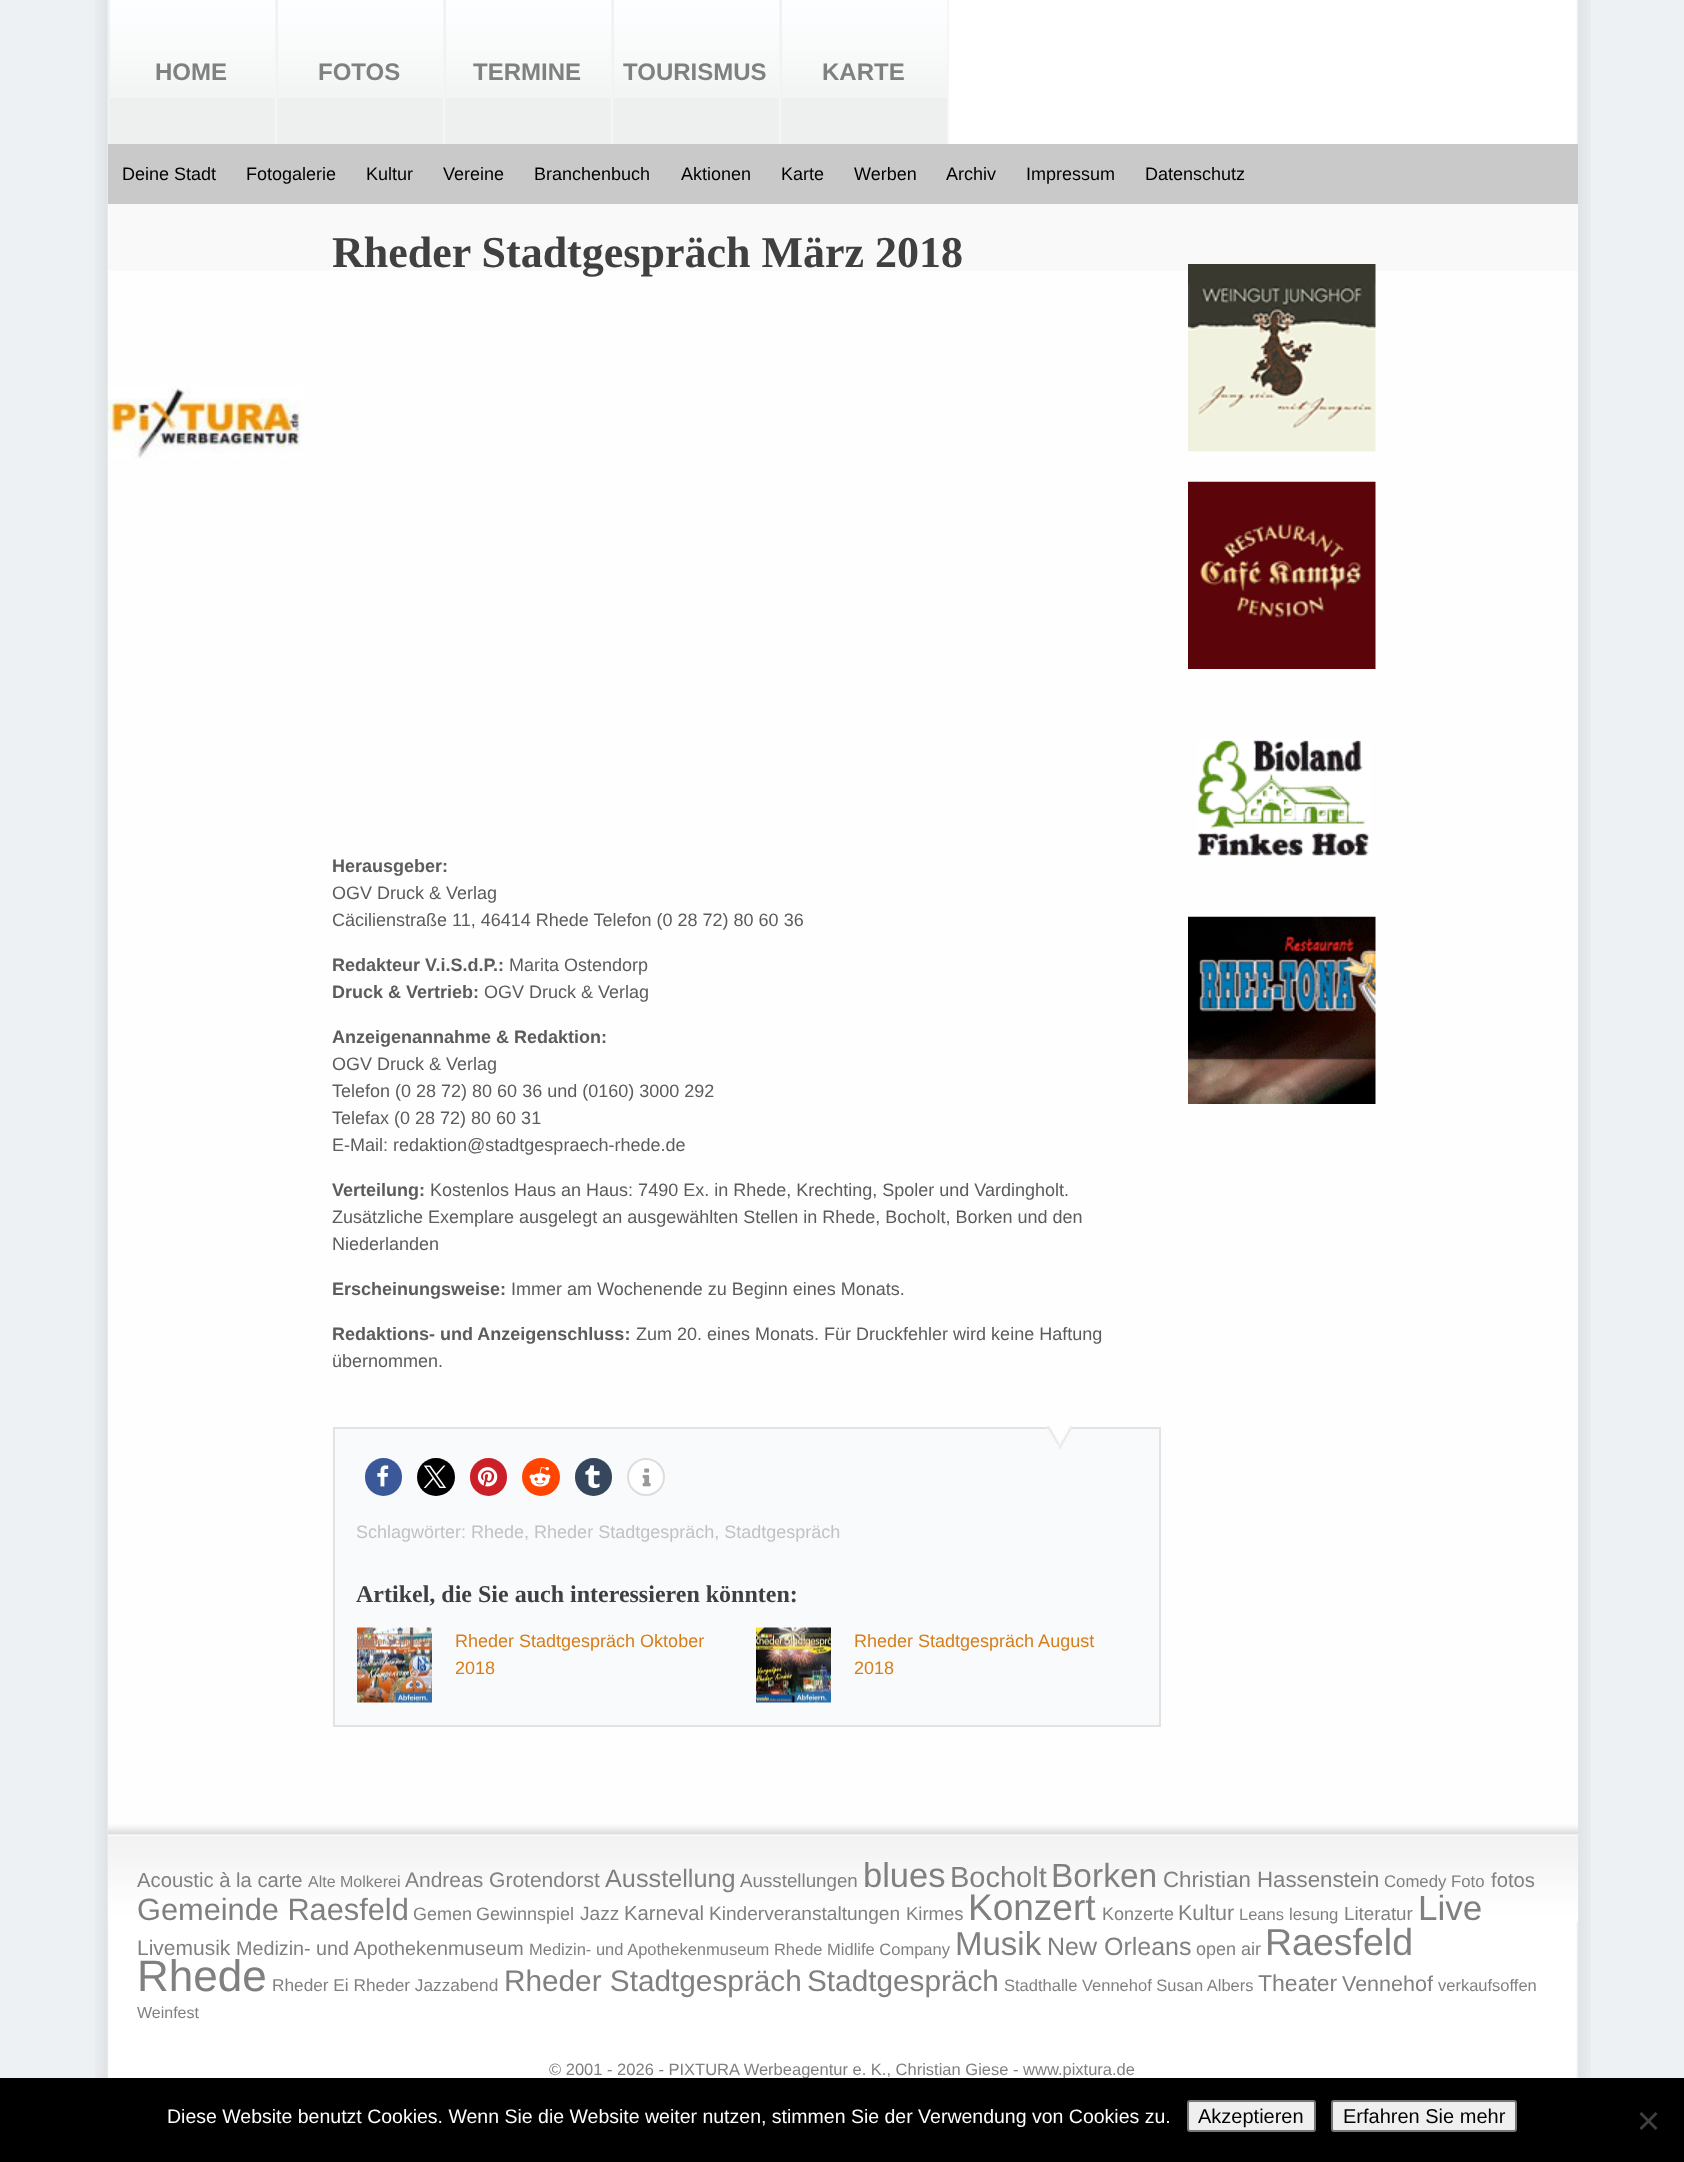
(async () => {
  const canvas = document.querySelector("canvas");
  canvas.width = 1684;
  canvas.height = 2162;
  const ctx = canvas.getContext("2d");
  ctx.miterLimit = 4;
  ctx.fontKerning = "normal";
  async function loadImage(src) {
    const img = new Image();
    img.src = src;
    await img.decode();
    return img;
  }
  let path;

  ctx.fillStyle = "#eef1f4";
  ctx.fillRect(0, 0, 1684, 2162);
  ctx.drawImage(await loadImage("img/1.png"), 95, 0, 1496, 2078);
  ctx.fillStyle = "#eef0f0";
  ctx.fillRect(110, 98, 837, 46);
  ctx.drawImage(await loadImage("img/2.png"), 110, 0, 837, 98);
  for (const [x, y, w, h, color] of [
    [275, 0, 1, 144, "#f6f6f7"],
    [108, 0, 2, 144, "#f2f2f2"],
    [443, 0, 1, 144, "#f6f6f7"],
    [276, 0, 2, 144, "#f2f2f2"],
    [611, 0, 1, 144, "#f6f6f7"],
    [444, 0, 2, 144, "#f2f2f2"],
    [779, 0, 1, 144, "#f6f6f7"],
    [612, 0, 2, 144, "#f2f2f2"],
    [947, 0, 2, 144, "#f6f6f7"],
    [780, 0, 2, 144, "#f2f2f2"],
    [108, 144, 1470, 60, "#c9c9c9"],
    [108, 271, 1470, 1546, "#fefefe"],
    [109, 204, 1469, 67, "#f9f9f9"],
  ]) {
    ctx.fillStyle = color;
    ctx.fillRect(x, y, w, h);
  }
  ctx.drawImage(await loadImage("img/3.png"), 108, 387, 194, 72);
  ctx.fillStyle = "#f9fafb";
  ctx.beginPath();
  ctx.rect(334, 1428, 826, 298);
  ctx.fill();
  ctx.strokeStyle = "#e3e3e3";
  ctx.lineWidth = 2;
  ctx.stroke();
  ctx.drawImage(await loadImage("img/4.png"), 1047, 1426, 26, 24);
  ctx.fillStyle = "#3b5998";
  ctx.beginPath();
  ctx.roundRect(365, 1458, 37, 38, 18.5);
  ctx.fill();
  ctx.drawImage(await loadImage("img/5.png"), 377, 1465, 12, 22);
  ctx.fillStyle = "#000000";
  ctx.beginPath();
  ctx.arc(436, 1477, 19, 0, Math.PI * 2);
  ctx.fill();
  ctx.drawImage(await loadImage("img/6.png"), 423, 1465, 24, 23);
  ctx.fillStyle = "#cb2027";
  ctx.beginPath();
  ctx.roundRect(470, 1458, 37, 38, 18.5);
  ctx.fill();
  ctx.drawImage(await loadImage("img/7.png"), 477, 1467, 21, 20);
  ctx.fillStyle = "#ff4500";
  ctx.beginPath();
  ctx.arc(541, 1477, 19, 0, Math.PI * 2);
  ctx.fill();
  ctx.drawImage(await loadImage("img/8.png"), 529, 1466, 22, 21);
  ctx.fillStyle = "#36465d";
  ctx.beginPath();
  ctx.roundRect(575, 1458, 37, 38, 18.5);
  ctx.fill();
  ctx.drawImage(await loadImage("img/9.png"), 585, 1465, 15, 23);
  ctx.fillStyle = "#ffffff";
  ctx.beginPath();
  ctx.arc(646, 1477, 18, 0, Math.PI * 2);
  ctx.fill();
  ctx.strokeStyle = "#dddddd";
  ctx.stroke();
  ctx.drawImage(await loadImage("img/10.png"), 642, 1468, 9, 19);
  ctx.drawImage(await loadImage("img/11.png"), 357, 1627, 75, 76);
  ctx.drawImage(await loadImage("img/12.png"), 756, 1627, 75, 76);
  ctx.drawImage(await loadImage("img/13.png"), 1188, 264, 188, 188);
  ctx.drawImage(await loadImage("img/14.png"), 1188, 481, 188, 188);
  ctx.drawImage(await loadImage("img/15.png"), 1197, 739, 173, 118);
  ctx.drawImage(await loadImage("img/16.png"), 1188, 916, 188, 188);
  ctx.drawImage(await loadImage("img/17.png"), 108, 1817, 1470, 105);
  ctx.font = "bold 24px Liberation Sans";
  ctx.fillStyle = "#808080";
  for (const [text, x, y] of [
    ["HOME", 155, 80],
    ["FOTOS", 318, 80],
    ["TERMINE", 473, 80],
    ["TOURISMUS", 623, 80],
    ["KARTE", 822, 80],
  ]) {
    ctx.fillText(text, x, y);
  }
  ctx.font = "18px Liberation Sans";
  ctx.fillStyle = "#000000";
  for (const [text, x, y] of [
    ["Deine Stadt", 122, 180],
    ["Fotogalerie", 246, 180],
    ["Kultur", 366, 180],
    ["Vereine", 443, 180],
    ["Branchenbuch", 534, 180],
    ["Aktionen", 681, 180],
    ["Karte", 781, 180],
    ["Werben", 854, 180],
    ["Archiv", 946, 180],
    ["Impressum", 1026, 180],
    ["Datenschutz", 1145, 180],
  ]) {
    ctx.fillText(text, x, y);
  }
  ctx.font = "bold 44px Liberation Serif";
  ctx.fillStyle = "#404040";
  ctx.fillText("Rheder Stadtgespräch März 2018", 332, 267);
  ctx.font = "bold 18px Liberation Sans";
  ctx.fillStyle = "#5c5c5c";
  ctx.fillText("Herausgeber:", 332, 872);
  ctx.font = "18px Liberation Sans";
  ctx.fillText("OGV Druck & Verlag", 332, 899);
  ctx.fillText("Cäcilienstraße 11, 46414 Rhede Telefon (0 28 72) 80 60 36", 332, 926);
  ctx.font = "bold 18px Liberation Sans";
  ctx.fillText("Redakteur V.i.S.d.P.:", 332, 971);
  ctx.font = "18px Liberation Sans";
  ctx.fillText("Marita Ostendorp", 509, 971);
  ctx.font = "bold 18px Liberation Sans";
  ctx.fillText("Druck & Vertrieb:", 332, 998);
  ctx.font = "18px Liberation Sans";
  ctx.fillText("OGV Druck & Verlag", 484, 998);
  ctx.font = "bold 18px Liberation Sans";
  ctx.fillText("Anzeigenannahme & Redaktion:", 332, 1043);
  ctx.font = "18px Liberation Sans";
  for (const [text, x, y] of [
    ["OGV Druck & Verlag", 332, 1070],
    ["Telefon (0 28 72) 80 60 36 und (0160) 3000 292", 332, 1097],
    ["Telefax (0 28 72) 80 60 31", 332, 1124],
    ["E-Mail: redaktion@stadtgespraech-rhede.de", 332, 1151],
  ]) {
    ctx.fillText(text, x, y);
  }
  ctx.font = "bold 18px Liberation Sans";
  ctx.fillText("Verteilung:", 332, 1196);
  ctx.font = "18px Liberation Sans";
  for (const [text, x, y] of [
    ["Kostenlos Haus an Haus: 7490 Ex. in Rhede, Krechting, Spoler und Vardingholt.", 430, 1196],
    ["Zusätzliche Exemplare ausgelegt an ausgewählten Stellen in Rhede, Bocholt, Borken und den", 332, 1223],
    ["Niederlanden", 332, 1250],
  ]) {
    ctx.fillText(text, x, y);
  }
  ctx.font = "bold 18px Liberation Sans";
  ctx.fillText("Erscheinungsweise:", 332, 1295);
  ctx.font = "18px Liberation Sans";
  ctx.fillText("Immer am Wochenende zu Beginn eines Monats.", 511, 1295);
  ctx.font = "bold 18px Liberation Sans";
  ctx.fillText("Redaktions- und Anzeigenschluss:", 332, 1340);
  ctx.font = "18px Liberation Sans";
  ctx.fillText("Zum 20. eines Monats. Für Druckfehler wird keine Haftung", 636, 1340);
  ctx.fillText("übernommen.", 332, 1367);
  ctx.fillStyle = "#c2c2c2";
  ctx.fillText("Schlagwörter: Rhede, Rheder Stadtgespräch, Stadtgespräch", 356, 1538);
  ctx.font = "bold 24px Liberation Serif";
  ctx.fillStyle = "#404040";
  ctx.fillText("Artikel, die Sie auch interessieren könnten:", 356, 1602);
  ctx.font = "18px Liberation Sans";
  ctx.fillStyle = "#d57e1c";
  for (const [text, x, y] of [
    ["Rheder Stadtgespräch Oktober", 455, 1647],
    ["2018", 455, 1674],
    ["Rheder Stadtgespräch August", 854, 1647],
    ["2018", 854, 1674],
  ]) {
    ctx.fillText(text, x, y);
  }
  ctx.font = "20.25px Liberation Sans";
  ctx.fillStyle = "#808080";
  ctx.fillText("Acoustic à la carte", 137, 1887);
  ctx.font = "16px Liberation Sans";
  ctx.fillText("Alte Molkerei", 308, 1887);
  ctx.font = "21px Liberation Sans";
  ctx.fillText("Andreas Grotendorst", 405, 1887);
  ctx.font = "25.25px Liberation Sans";
  ctx.fillText("Ausstellung", 605, 1887);
  ctx.font = "18.75px Liberation Sans";
  ctx.fillText("Ausstellungen", 740, 1887);
  ctx.font = "34.5px Liberation Sans";
  ctx.fillText("blues", 863, 1887);
  ctx.font = "29px Liberation Sans";
  ctx.fillText("Bocholt", 950, 1887);
  ctx.font = "33.5px Liberation Sans";
  ctx.fillText("Borken", 1051, 1887);
  ctx.font = "22.25px Liberation Sans";
  ctx.fillText("Christian Hassenstein", 1163, 1887);
  ctx.font = "16.75px Liberation Sans";
  ctx.fillText("Comedy Foto", 1384, 1887);
  ctx.font = "20.25px Liberation Sans";
  ctx.fillText("fotos", 1491, 1887);
  ctx.font = "30.75px Liberation Sans";
  ctx.fillText("Gemeinde Raesfeld", 137, 1920);
  ctx.font = "18px Liberation Sans";
  ctx.fillText("Gemen", 413, 1920);
  ctx.fillText("Gewinnspiel", 476, 1920);
  ctx.font = "19.1px Liberation Sans";
  ctx.fillText("Jazz", 580, 1920);
  ctx.font = "20.25px Liberation Sans";
  ctx.fillText("Karneval", 624, 1920);
  ctx.font = "19.1px Liberation Sans";
  ctx.fillText("Kinderveranstaltungen", 709, 1920);
  ctx.font = "18.5px Liberation Sans";
  ctx.fillText("Kirmes", 906, 1920);
  ctx.font = "37px Liberation Sans";
  ctx.fillText("Konzert", 968, 1920);
  ctx.font = "18px Liberation Sans";
  ctx.fillText("Konzerte", 1102, 1920);
  ctx.font = "21.5px Liberation Sans";
  ctx.fillText("Kultur", 1178, 1920);
  ctx.font = "16.5px Liberation Sans";
  ctx.fillText("Leans", 1239, 1920);
  ctx.font = "16.75px Liberation Sans";
  ctx.fillText("lesung", 1289, 1920);
  ctx.font = "18.75px Liberation Sans";
  ctx.fillText("Literatur", 1344, 1920);
  ctx.font = "35px Liberation Sans";
  ctx.fillText("Live", 1418, 1920);
  ctx.font = "21px Liberation Sans";
  ctx.fillText("Livemusik", 137, 1955);
  ctx.font = "19.75px Liberation Sans";
  ctx.fillText("Medizin- und Apothekenmuseum", 236, 1955);
  ctx.font = "16.5px Liberation Sans";
  ctx.fillText("Medizin- und Apothekenmuseum Rhede Midlife Company", 529, 1955);
  ctx.font = "33px Liberation Sans";
  ctx.fillText("Musik", 955, 1955);
  ctx.font = "25px Liberation Sans";
  ctx.fillText("New Orleans", 1047, 1955);
  ctx.font = "18px Liberation Sans";
  ctx.fillText("open air", 1196, 1955);
  ctx.font = "37.5px Liberation Sans";
  ctx.fillText("Raesfeld", 1265, 1955);
  ctx.font = "44px Liberation Sans";
  ctx.fillText("Rhede", 137, 1991);
  ctx.font = "17.25px Liberation Sans";
  ctx.fillText("Rheder Ei Rheder Jazzabend", 272, 1991);
  ctx.font = "29.75px Liberation Sans";
  ctx.fillText("Rheder Stadtgespräch", 504, 1991);
  ctx.fillText("Stadtgespräch", 807, 1991);
  ctx.font = "16.5px Liberation Sans";
  ctx.fillText("Stadthalle Vennehof Susan Albers", 1004, 1991);
  ctx.font = "23px Liberation Sans";
  ctx.fillText("Theater", 1258, 1991);
  ctx.font = "21.5px Liberation Sans";
  ctx.fillText("Vennehof", 1342, 1991);
  ctx.font = "16.5px Liberation Sans";
  ctx.fillText("verkaufsoffen", 1438, 1991);
  ctx.font = "16px Liberation Sans";
  ctx.fillText("Weinfest", 137, 2018);
  ctx.font = "16.5px Liberation Sans";
  ctx.fillText("© 2001 - 2026 - PIXTURA Werbeagentur e. K., Christian Giese - www.pixtura.de", 549, 2075);
  ctx.fillStyle = "#000000";
  ctx.fillRect(0, 2078, 1684, 84);
  ctx.font = "19.5px Liberation Sans";
  ctx.fillStyle = "#ffffff";
  ctx.fillText("Diese Website benutzt Cookies. Wenn Sie die Website weiter nutzen, stimmen Sie der Verwendung von Cookies zu.", 167, 2123);
  ctx.fillStyle = "#efefef";
  ctx.beginPath();
  ctx.roundRect(1188, 2101, 127, 30, 2);
  ctx.fill();
  ctx.strokeStyle = "#767676";
  ctx.stroke();
  ctx.font = "20px Liberation Sans";
  ctx.fillStyle = "#000000";
  ctx.fillText("Akzeptieren", 1198, 2123);
  ctx.fillStyle = "#efefef";
  ctx.beginPath();
  ctx.roundRect(1332, 2101, 184, 30, 2);
  ctx.fill();
  ctx.stroke();
  ctx.fillStyle = "#000000";
  ctx.fillText("Erfahren Sie mehr", 1343, 2123);
  ctx.fillStyle = "#404040";
  path = new Path2D("M1655.5 2112L1657.5 2114L1641.5 2130L1639.5 2128Z");
  ctx.fill(path);
  path = new Path2D("M1639.5 2114L1641.5 2112L1657.5 2128L1655.5 2130Z");
  ctx.fill(path);
})();
